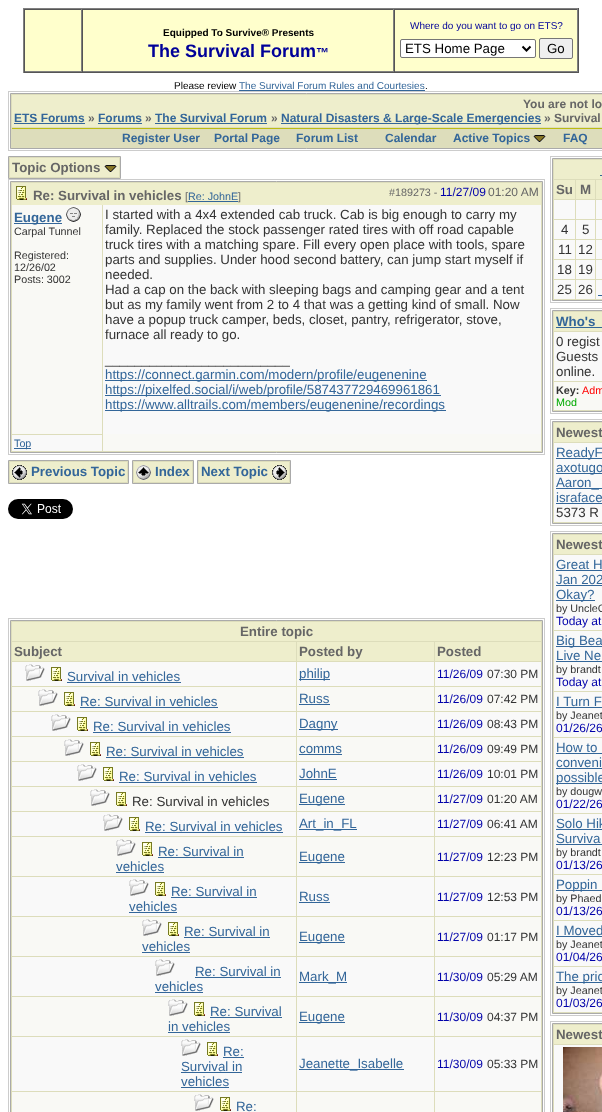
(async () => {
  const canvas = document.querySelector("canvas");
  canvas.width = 602;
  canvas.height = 1112;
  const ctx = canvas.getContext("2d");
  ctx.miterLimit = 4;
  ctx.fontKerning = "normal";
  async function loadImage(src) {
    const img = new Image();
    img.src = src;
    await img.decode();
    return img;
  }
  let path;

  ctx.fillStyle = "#ffffff";
  ctx.fillRect(0, 0, 602, 1112);
  for (const [x, y, w, h, color] of [
    [23, 8, 556, 1, "#808080"],
    [578, 8, 1, 65, "#555555"],
    [23, 72, 556, 1, "#555555"],
    [23, 8, 1, 65, "#808080"],
    [25, 10, 56, 61, "#ffffcc"],
    [24, 9, 554, 1, "#555555"],
    [81, 9, 1, 63, "#808080"],
    [24, 71, 58, 1, "#808080"],
    [24, 9, 1, 63, "#555555"],
    [83, 10, 310, 61, "#ffffcc"],
    [393, 9, 1, 63, "#808080"],
    [82, 71, 312, 1, "#808080"],
    [82, 9, 1, 63, "#555555"],
    [395, 10, 182, 61, "#ffffcc"],
    [577, 9, 1, 63, "#808080"],
    [394, 71, 184, 1, "#808080"],
    [394, 9, 1, 63, "#555555"],
  ]) {
    ctx.fillStyle = color;
    ctx.fillRect(x, y, w, h);
  }
  ctx.fillStyle = "#ffffff";
  ctx.beginPath();
  ctx.roundRect(400.5, 39.5, 135, 18, 1.5);
  ctx.fill();
  ctx.strokeStyle = "#767676";
  ctx.stroke();
  path = new Path2D("M522.5 46.5L526.5 50.5L530.5 46.5");
  ctx.strokeStyle = "#000000";
  ctx.lineWidth = 2;
  ctx.stroke(path);
  ctx.fillStyle = "#efefef";
  ctx.beginPath();
  ctx.roundRect(539.5, 38.5, 33, 20, 1.5);
  ctx.fill();
  ctx.strokeStyle = "#767676";
  ctx.lineWidth = 1;
  ctx.stroke();
  ctx.fillStyle = "#336699";
  ctx.fillRect(239, 90, 186, 1);
  ctx.strokeStyle = "#cccccc";
  ctx.strokeRect(8.5, 91.5, 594, 59);
  ctx.fillStyle = "#ddddbb";
  ctx.beginPath();
  ctx.rect(10.5, 93.5, 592, 55);
  ctx.fill();
  ctx.strokeStyle = "#aaaaaa";
  ctx.stroke();
  for (const [x, y, w, h, color] of [
    [12, 95, 590, 32, "#eeeecc"],
    [14, 123, 71, 1, "#336699"],
    [98, 123, 44, 1, "#336699"],
    [155, 123, 112, 1, "#336699"],
    [281, 123, 260, 1, "#336699"],
    [12, 128, 590, 1, "#bbbb11"],
  ]) {
    ctx.fillStyle = color;
    ctx.fillRect(x, y, w, h);
  }
  ctx.drawImage(await loadImage("img/1.png"), 533, 135, 13, 7);
  ctx.fillStyle = "#ddddbb";
  ctx.beginPath();
  ctx.rect(8.5, 156.5, 112, 22);
  ctx.fill();
  ctx.stroke();
  ctx.fillStyle = "#eeeecc";
  ctx.fillRect(10, 158, 109, 19);
  ctx.drawImage(await loadImage("img/2.png"), 104, 165, 13, 7);
  ctx.strokeStyle = "#cccccc";
  ctx.strokeRect(8.5, 179.5, 536, 275);
  ctx.fillStyle = "#ddddbb";
  ctx.beginPath();
  ctx.rect(10.5, 181.5, 532, 271);
  ctx.fill();
  ctx.strokeStyle = "#aaaaaa";
  ctx.stroke();
  ctx.fillStyle = "#eeeecc";
  ctx.fillRect(12, 183, 529, 22);
  ctx.drawImage(await loadImage("img/3.png"), 16, 186, 11, 14);
  ctx.fillStyle = "#f9f9f5";
  ctx.fillRect(12, 205, 90, 229);
  ctx.fillStyle = "#336699";
  ctx.fillRect(14, 223, 48, 1);
  ctx.drawImage(await loadImage("img/4.png"), 66, 207, 15, 15);
  for (const [x, y, w, h, color] of [
    [103, 205, 438, 229, "#f9f9f9"],
    [105, 380, 322, 1, "#336699"],
    [105, 395, 336, 1, "#336699"],
    [105, 410, 341, 1, "#336699"],
    [12, 435, 90, 16, "#f9f9f9"],
    [14, 448, 17, 1, "#336699"],
    [103, 434, 438, 17, "#f9f9f5"],
  ]) {
    ctx.fillStyle = color;
    ctx.fillRect(x, y, w, h);
  }
  ctx.fillStyle = "#ddddbb";
  ctx.beginPath();
  ctx.rect(8.5, 460.5, 120, 23);
  ctx.fill();
  ctx.stroke();
  ctx.fillStyle = "#eeeecc";
  ctx.fillRect(10, 462, 117, 20);
  ctx.drawImage(await loadImage("img/5.png"), 12, 465, 15, 15);
  ctx.fillStyle = "#ddddbb";
  ctx.beginPath();
  ctx.rect(132.5, 460.5, 61, 23);
  ctx.fill();
  ctx.stroke();
  ctx.fillStyle = "#eeeecc";
  ctx.fillRect(134, 462, 58, 20);
  ctx.drawImage(await loadImage("img/6.png"), 136, 465, 15, 15);
  ctx.fillStyle = "#ddddbb";
  ctx.beginPath();
  ctx.rect(197.5, 460.5, 93, 23);
  ctx.fill();
  ctx.stroke();
  ctx.fillStyle = "#eeeecc";
  ctx.fillRect(199, 462, 90, 20);
  ctx.drawImage(await loadImage("img/7.png"), 272, 465, 15, 15);
  ctx.drawImage(await loadImage("img/8.png"), 8, 499, 65, 20);
  ctx.strokeStyle = "#cccccc";
  ctx.strokeRect(8.5, 618.5, 536, 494);
  ctx.fillStyle = "#ddddbb";
  ctx.beginPath();
  ctx.rect(10.5, 620.5, 532, 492);
  ctx.fill();
  ctx.strokeStyle = "#aaaaaa";
  ctx.stroke();
  for (const [x, y, w, h, color] of [
    [12, 622, 529, 19, "#eeeecc"],
    [12, 642, 284, 19, "#eeeecc"],
    [297, 642, 137, 19, "#eeeecc"],
    [435, 642, 106, 19, "#eeeecc"],
    [12, 662, 284, 24, "#f9f9f9"],
  ]) {
    ctx.fillStyle = color;
    ctx.fillRect(x, y, w, h);
  }
  ctx.drawImage(await loadImage("img/9.png"), 25, 664, 20, 17);
  ctx.drawImage(await loadImage("img/10.png"), 51, 667, 11, 14);
  for (const [x, y, w, h, color] of [
    [67, 682, 114, 1, "#336699"],
    [297, 662, 137, 24, "#f9f9f9"],
    [299, 679, 31, 1, "#336699"],
    [435, 662, 106, 24, "#f9f9f9"],
    [12, 687, 284, 24, "#f9f9f5"],
  ]) {
    ctx.fillStyle = color;
    ctx.fillRect(x, y, w, h);
  }
  ctx.drawImage(await loadImage("img/11.png"), 38, 689, 20, 17);
  ctx.drawImage(await loadImage("img/12.png"), 64, 692, 11, 14);
  for (const [x, y, w, h, color] of [
    [80, 707, 138, 1, "#336699"],
    [297, 687, 137, 24, "#f9f9f5"],
    [299, 704, 31, 1, "#336699"],
    [435, 687, 106, 24, "#f9f9f5"],
    [12, 712, 284, 24, "#f9f9f9"],
  ]) {
    ctx.fillStyle = color;
    ctx.fillRect(x, y, w, h);
  }
  ctx.drawImage(await loadImage("img/9.png"), 51, 714, 20, 17);
  ctx.drawImage(await loadImage("img/10.png"), 77, 717, 11, 14);
  for (const [x, y, w, h, color] of [
    [93, 732, 138, 1, "#336699"],
    [297, 712, 137, 24, "#f9f9f9"],
    [299, 729, 39, 1, "#336699"],
    [435, 712, 106, 24, "#f9f9f9"],
    [12, 737, 284, 24, "#f9f9f5"],
  ]) {
    ctx.fillStyle = color;
    ctx.fillRect(x, y, w, h);
  }
  ctx.drawImage(await loadImage("img/11.png"), 64, 739, 20, 17);
  ctx.drawImage(await loadImage("img/12.png"), 90, 742, 11, 14);
  for (const [x, y, w, h, color] of [
    [106, 757, 138, 1, "#336699"],
    [297, 737, 137, 24, "#f9f9f5"],
    [299, 754, 43, 1, "#336699"],
    [435, 737, 106, 24, "#f9f9f5"],
    [12, 762, 284, 24, "#f9f9f9"],
  ]) {
    ctx.fillStyle = color;
    ctx.fillRect(x, y, w, h);
  }
  ctx.drawImage(await loadImage("img/9.png"), 77, 764, 20, 17);
  ctx.drawImage(await loadImage("img/10.png"), 103, 767, 11, 14);
  for (const [x, y, w, h, color] of [
    [119, 782, 138, 1, "#336699"],
    [297, 762, 137, 24, "#f9f9f9"],
    [299, 779, 38, 1, "#336699"],
    [435, 762, 106, 24, "#f9f9f9"],
    [12, 787, 284, 24, "#f9f9f5"],
  ]) {
    ctx.fillStyle = color;
    ctx.fillRect(x, y, w, h);
  }
  ctx.drawImage(await loadImage("img/11.png"), 90, 789, 20, 17);
  ctx.drawImage(await loadImage("img/12.png"), 116, 792, 11, 14);
  for (const [x, y, w, h, color] of [
    [297, 787, 137, 24, "#f9f9f5"],
    [299, 804, 46, 1, "#336699"],
    [435, 787, 106, 24, "#f9f9f5"],
    [12, 812, 284, 24, "#f9f9f9"],
  ]) {
    ctx.fillStyle = color;
    ctx.fillRect(x, y, w, h);
  }
  ctx.drawImage(await loadImage("img/9.png"), 103, 814, 20, 17);
  ctx.drawImage(await loadImage("img/10.png"), 129, 817, 11, 14);
  for (const [x, y, w, h, color] of [
    [145, 832, 138, 1, "#336699"],
    [297, 812, 137, 24, "#f9f9f9"],
    [299, 829, 58, 1, "#336699"],
    [435, 812, 106, 24, "#f9f9f9"],
    [12, 837, 284, 39, "#f9f9f5"],
  ]) {
    ctx.fillStyle = color;
    ctx.fillRect(x, y, w, h);
  }
  ctx.drawImage(await loadImage("img/11.png"), 116, 839, 20, 17);
  ctx.drawImage(await loadImage("img/12.png"), 142, 842, 11, 14);
  for (const [x, y, w, h, color] of [
    [158, 857, 86, 1, "#336699"],
    [116, 872, 48, 1, "#336699"],
    [297, 837, 137, 39, "#f9f9f5"],
    [299, 862, 46, 1, "#336699"],
    [435, 837, 106, 39, "#f9f9f5"],
    [12, 877, 284, 39, "#f9f9f9"],
  ]) {
    ctx.fillStyle = color;
    ctx.fillRect(x, y, w, h);
  }
  ctx.drawImage(await loadImage("img/9.png"), 129, 879, 20, 17);
  ctx.drawImage(await loadImage("img/10.png"), 155, 882, 11, 14);
  for (const [x, y, w, h, color] of [
    [171, 897, 86, 1, "#336699"],
    [129, 912, 48, 1, "#336699"],
    [297, 877, 137, 39, "#f9f9f9"],
    [299, 902, 31, 1, "#336699"],
    [435, 877, 106, 39, "#f9f9f9"],
    [12, 917, 284, 39, "#f9f9f5"],
  ]) {
    ctx.fillStyle = color;
    ctx.fillRect(x, y, w, h);
  }
  ctx.drawImage(await loadImage("img/11.png"), 142, 919, 20, 17);
  ctx.drawImage(await loadImage("img/12.png"), 168, 922, 11, 14);
  for (const [x, y, w, h, color] of [
    [184, 937, 86, 1, "#336699"],
    [142, 952, 48, 1, "#336699"],
    [297, 917, 137, 39, "#f9f9f5"],
    [299, 942, 46, 1, "#336699"],
    [435, 917, 106, 39, "#f9f9f5"],
    [12, 957, 284, 39, "#f9f9f9"],
  ]) {
    ctx.fillStyle = color;
    ctx.fillRect(x, y, w, h);
  }
  ctx.drawImage(await loadImage("img/9.png"), 155, 959, 20, 17);
  for (const [x, y, w, h, color] of [
    [195, 977, 86, 1, "#336699"],
    [155, 992, 48, 1, "#336699"],
    [297, 957, 137, 39, "#f9f9f9"],
    [299, 982, 48, 1, "#336699"],
    [435, 957, 106, 39, "#f9f9f9"],
    [12, 997, 284, 39, "#f9f9f5"],
  ]) {
    ctx.fillStyle = color;
    ctx.fillRect(x, y, w, h);
  }
  ctx.drawImage(await loadImage("img/11.png"), 168, 999, 20, 17);
  ctx.drawImage(await loadImage("img/12.png"), 194, 1002, 11, 14);
  for (const [x, y, w, h, color] of [
    [210, 1017, 72, 1, "#336699"],
    [168, 1032, 62, 1, "#336699"],
    [297, 997, 137, 39, "#f9f9f5"],
    [299, 1022, 46, 1, "#336699"],
    [435, 997, 106, 39, "#f9f9f5"],
    [12, 1037, 284, 54, "#f9f9f9"],
  ]) {
    ctx.fillStyle = color;
    ctx.fillRect(x, y, w, h);
  }
  ctx.drawImage(await loadImage("img/9.png"), 181, 1039, 20, 17);
  ctx.drawImage(await loadImage("img/10.png"), 207, 1042, 11, 14);
  for (const [x, y, w, h, color] of [
    [223, 1057, 21, 1, "#336699"],
    [181, 1072, 61, 1, "#336699"],
    [181, 1087, 48, 1, "#336699"],
    [297, 1037, 137, 54, "#f9f9f9"],
    [299, 1069, 105, 1, "#336699"],
    [435, 1037, 106, 54, "#f9f9f9"],
    [12, 1092, 284, 20, "#f9f9f5"],
  ]) {
    ctx.fillStyle = color;
    ctx.fillRect(x, y, w, h);
  }
  ctx.drawImage(await loadImage("img/11.png"), 194, 1094, 20, 17);
  ctx.drawImage(await loadImage("img/12.png"), 220, 1097, 11, 14);
  ctx.fillRect(297, 1092, 137, 20);
  ctx.fillRect(435, 1092, 106, 20);
  ctx.strokeStyle = "#cccccc";
  ctx.strokeRect(550.5, 156.5, 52, 146);
  ctx.fillStyle = "#ddddbb";
  ctx.beginPath();
  ctx.rect(552.5, 158.5, 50, 142);
  ctx.fill();
  ctx.strokeStyle = "#aaaaaa";
  ctx.stroke();
  for (const [x, y, w, h, color] of [
    [554, 160, 48, 19, "#eeeecc"],
    [600, 175, 2, 1, "#336699"],
    [554, 180, 21, 19, "#eeeecc"],
    [576, 180, 19, 19, "#eeeecc"],
    [596, 180, 6, 19, "#eeeecc"],
    [554, 200, 21, 19, "#f9f9f9"],
    [576, 200, 19, 19, "#f9f9f9"],
    [596, 200, 6, 19, "#f9f9f9"],
    [554, 220, 21, 19, "#f9f9f9"],
    [576, 220, 19, 19, "#f9f9f9"],
    [596, 220, 6, 19, "#f9f9f9"],
    [554, 240, 21, 19, "#f9f9f9"],
    [576, 240, 19, 19, "#f9f9f9"],
    [596, 240, 6, 19, "#f9f9f9"],
    [554, 260, 21, 19, "#f9f9f9"],
    [576, 260, 19, 19, "#f9f9f9"],
    [596, 260, 6, 19, "#f9f9f9"],
    [554, 280, 21, 19, "#f9f9f9"],
    [576, 280, 19, 19, "#f9f9f9"],
    [596, 280, 6, 19, "#f9f9f9"],
    [598, 295, 4, 1, "#336699"],
  ]) {
    ctx.fillStyle = color;
    ctx.fillRect(x, y, w, h);
  }
  ctx.strokeStyle = "#cccccc";
  ctx.strokeRect(550.5, 308.5, 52, 105);
  ctx.fillStyle = "#ddddbb";
  ctx.beginPath();
  ctx.rect(552.5, 310.5, 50, 101);
  ctx.fill();
  ctx.strokeStyle = "#aaaaaa";
  ctx.stroke();
  for (const [x, y, w, h, color] of [
    [554, 312, 48, 19, "#eeeecc"],
    [556, 327, 46, 1, "#336699"],
    [554, 332, 48, 49, "#f9f9f9"],
    [554, 382, 48, 28, "#f9f9f5"],
  ]) {
    ctx.fillStyle = color;
    ctx.fillRect(x, y, w, h);
  }
  ctx.strokeStyle = "#cccccc";
  ctx.strokeRect(550.5, 419.5, 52, 106);
  ctx.fillStyle = "#ddddbb";
  ctx.beginPath();
  ctx.rect(552.5, 421.5, 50, 102);
  ctx.fill();
  ctx.strokeStyle = "#aaaaaa";
  ctx.stroke();
  for (const [x, y, w, h, color] of [
    [554, 423, 48, 19, "#eeeecc"],
    [554, 443, 48, 79, "#f9f9f9"],
    [556, 458, 46, 1, "#336699"],
    [556, 473, 46, 1, "#336699"],
    [556, 488, 46, 1, "#336699"],
    [556, 503, 46, 1, "#336699"],
  ]) {
    ctx.fillStyle = color;
    ctx.fillRect(x, y, w, h);
  }
  ctx.strokeStyle = "#cccccc";
  ctx.strokeRect(550.5, 531.5, 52, 484);
  ctx.fillStyle = "#ddddbb";
  ctx.beginPath();
  ctx.rect(552.5, 533.5, 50, 480);
  ctx.fill();
  ctx.strokeStyle = "#aaaaaa";
  ctx.stroke();
  for (const [x, y, w, h, color] of [
    [554, 535, 48, 19, "#eeeecc"],
    [554, 555, 48, 75, "#f9f9f9"],
    [556, 570, 46, 1, "#336699"],
    [556, 585, 46, 1, "#336699"],
    [556, 600, 39, 1, "#336699"],
    [554, 631, 48, 60, "#f9f9f9"],
    [556, 646, 46, 1, "#336699"],
    [556, 661, 46, 1, "#336699"],
    [554, 692, 48, 45, "#f9f9f9"],
    [556, 707, 46, 1, "#336699"],
    [554, 738, 48, 75, "#f9f9f9"],
    [556, 753, 46, 1, "#336699"],
    [556, 768, 46, 1, "#336699"],
    [556, 783, 46, 1, "#336699"],
    [554, 814, 48, 60, "#f9f9f9"],
    [556, 829, 46, 1, "#336699"],
    [556, 844, 46, 1, "#336699"],
    [554, 875, 48, 45, "#f9f9f9"],
    [556, 890, 46, 1, "#336699"],
    [554, 921, 48, 45, "#f9f9f9"],
    [556, 936, 46, 1, "#336699"],
    [554, 967, 48, 45, "#f9f9f9"],
    [556, 982, 46, 1, "#336699"],
  ]) {
    ctx.fillStyle = color;
    ctx.fillRect(x, y, w, h);
  }
  ctx.strokeStyle = "#cccccc";
  ctx.strokeRect(550.5, 1021.5, 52, 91);
  ctx.fillStyle = "#ddddbb";
  ctx.beginPath();
  ctx.rect(552.5, 1023.5, 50, 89);
  ctx.fill();
  ctx.strokeStyle = "#aaaaaa";
  ctx.stroke();
  ctx.fillStyle = "#eeeecc";
  ctx.fillRect(554, 1025, 48, 19);
  ctx.fillStyle = "#f9f9f9";
  ctx.fillRect(554, 1045, 48, 67);
  ctx.drawImage(await loadImage("img/13.png"), 563, 1047, 39, 65);
  ctx.font = "bold 10px Liberation Sans";
  ctx.fillStyle = "#000000";
  ctx.fillText("Equipped To Survive® Presents", 163, 36);
  ctx.font = "bold 18px Liberation Sans";
  ctx.fillStyle = "#000099";
  ctx.fillText("The Survival Forum", 148, 57);
  ctx.font = "bold 13px Liberation Sans";
  ctx.fillText("™", 316, 57);
  ctx.font = "10px Liberation Sans";
  ctx.fillText("Where do you want to go on ETS?", 410, 29);
  ctx.font = "13.3px Liberation Sans";
  ctx.fillStyle = "#000000";
  ctx.fillText("ETS Home Page", 405, 53);
  ctx.fillText("Go", 547, 53);
  ctx.font = "10px Liberation Sans";
  ctx.fillText("Please review", 174, 89);
  ctx.fillStyle = "#336699";
  ctx.fillText("The Survival Forum Rules and Courtesies", 239, 89);
  ctx.fillStyle = "#000000";
  ctx.fillText(".", 425, 89);
  ctx.font = "bold 12px Liberation Sans";
  ctx.fillStyle = "#666666";
  ctx.fillText("You are not lo", 523, 108);
  ctx.fillStyle = "#336699";
  ctx.fillText("ETS Forums", 14, 122);
  ctx.fillStyle = "#666666";
  ctx.fillText("»", 88, 122);
  ctx.fillStyle = "#336699";
  ctx.fillText("Forums", 98, 122);
  ctx.fillStyle = "#666666";
  ctx.fillText("»", 145, 122);
  ctx.fillStyle = "#336699";
  ctx.fillText("The Survival Forum", 155, 122);
  ctx.fillStyle = "#666666";
  ctx.fillText("»", 271, 122);
  ctx.fillStyle = "#336699";
  ctx.fillText("Natural Disasters & Large-Scale Emergencies", 281, 122);
  ctx.fillStyle = "#666666";
  ctx.fillText("» Survival", 544, 122);
  ctx.fillStyle = "#336699";
  for (const [text, x, y] of [
    ["Register User", 122, 142],
    ["Portal Page", 214, 142],
    ["Forum List", 296, 142],
    ["Calendar", 385, 142],
    ["Active Topics", 453, 142],
    ["FAQ", 563, 142],
  ]) {
    ctx.fillText(text, x, y);
  }
  ctx.font = "bold 13.3px Liberation Sans";
  ctx.fillStyle = "#666666";
  ctx.fillText("Topic Options", 12, 172);
  ctx.fillText("Re: Survival in vehicles", 33, 200);
  ctx.font = "10.75px Liberation Sans";
  ctx.fillText("[", 185, 200);
  ctx.fillStyle = "#336699";
  ctx.fillRect(188, 201, 50, 1);
  ctx.fillText("Re: JohnE", 188, 200);
  ctx.fillStyle = "#666666";
  ctx.fillText("]", 238, 200);
  ctx.fillText("#189273 -", 389, 196);
  ctx.font = "12px Liberation Sans";
  ctx.fillStyle = "#0000aa";
  ctx.fillText("11/27/09", 440, 196);
  ctx.fillStyle = "#666666";
  ctx.fillText("01:20 AM", 488, 196);
  ctx.font = "bold 13.3px Liberation Sans";
  ctx.fillStyle = "#336699";
  ctx.fillText("Eugene", 14, 222);
  ctx.font = "10.75px Liberation Sans";
  ctx.fillStyle = "#333333";
  for (const [text, x, y] of [
    ["Carpal Tunnel", 14, 235],
    ["Registered:", 14, 259],
    ["12/26/02", 14, 271],
    ["Posts: 3002", 14, 283],
  ]) {
    ctx.fillText(text, x, y);
  }
  ctx.font = "13.3px Liberation Sans";
  for (const [text, x, y] of [
    ["I started with a 4x4 extended cab truck. Cab is big enough to carry my", 105, 219],
    ["family. Replaced the stock passenger rated tires with off road capable", 105, 234],
    ["truck tires with a matching spare. Fill every open place with tools, spare", 105, 249],
    ["parts and supplies. Under hood second battery, can jump start myself if", 105, 264],
    ["needed.", 105, 279],
    ["Had a cap on the back with sleeping bags and camping gear and a tent", 105, 294],
    ["but as my family went from 2 to 4 that was a getting kind of small. Now", 105, 309],
    ["have a popup truck camper, beds, closet, pantry, refrigerator, stove,", 105, 324],
    ["furnace all ready to go.", 105, 339],
    ["_________________________", 105, 364],
  ]) {
    ctx.fillText(text, x, y);
  }
  ctx.fillStyle = "#336699";
  for (const [text, x, y] of [
    ["https://connect.garmin.com/modern/profile/eugenenine", 105, 379],
    ["https://pixelfed.social/i/web/profile/587437729469961861", 105, 394],
    ["https://www.alltrails.com/members/eugenenine/recordings", 105, 409],
  ]) {
    ctx.fillText(text, x, y);
  }
  ctx.font = "10.75px Liberation Sans";
  ctx.fillText("Top", 14, 447);
  ctx.font = "bold 13.3px Liberation Sans";
  for (const [text, x, y] of [
    ["Previous Topic", 31, 476],
    ["Index", 155, 476],
    ["Next Topic", 201, 476],
  ]) {
    ctx.fillText(text, x, y);
  }
  ctx.fillStyle = "#666666";
  for (const [text, x, y] of [
    ["Entire topic", 240, 636],
    ["Subject", 14, 656],
    ["Posted by", 299, 656],
    ["Posted", 437, 656],
  ]) {
    ctx.fillText(text, x, y);
  }
  ctx.font = "13.3px Liberation Sans";
  ctx.fillStyle = "#336699";
  ctx.fillText("Survival in vehicles", 67, 681);
  ctx.fillText("philip", 299, 678);
  ctx.font = "12px Liberation Sans";
  ctx.fillStyle = "#0000aa";
  ctx.fillText("11/26/09", 437, 678);
  ctx.fillStyle = "#333333";
  ctx.fillText("07:30 PM", 487, 678);
  ctx.font = "13.3px Liberation Sans";
  ctx.fillStyle = "#336699";
  ctx.fillText("Re: Survival in vehicles", 80, 706);
  ctx.fillText("Russ", 299, 703);
  ctx.font = "12px Liberation Sans";
  ctx.fillStyle = "#0000aa";
  ctx.fillText("11/26/09", 437, 703);
  ctx.fillStyle = "#333333";
  ctx.fillText("07:42 PM", 487, 703);
  ctx.font = "13.3px Liberation Sans";
  ctx.fillStyle = "#336699";
  ctx.fillText("Re: Survival in vehicles", 93, 731);
  ctx.fillText("Dagny", 299, 728);
  ctx.font = "12px Liberation Sans";
  ctx.fillStyle = "#0000aa";
  ctx.fillText("11/26/09", 437, 728);
  ctx.fillStyle = "#333333";
  ctx.fillText("08:43 PM", 487, 728);
  ctx.font = "13.3px Liberation Sans";
  ctx.fillStyle = "#336699";
  ctx.fillText("Re: Survival in vehicles", 106, 756);
  ctx.fillText("comms", 299, 753);
  ctx.font = "12px Liberation Sans";
  ctx.fillStyle = "#0000aa";
  ctx.fillText("11/26/09", 437, 753);
  ctx.fillStyle = "#333333";
  ctx.fillText("09:49 PM", 487, 753);
  ctx.font = "13.3px Liberation Sans";
  ctx.fillStyle = "#336699";
  ctx.fillText("Re: Survival in vehicles", 119, 781);
  ctx.fillText("JohnE", 299, 778);
  ctx.font = "12px Liberation Sans";
  ctx.fillStyle = "#0000aa";
  ctx.fillText("11/26/09", 437, 778);
  ctx.fillStyle = "#333333";
  ctx.fillText("10:01 PM", 487, 778);
  ctx.font = "13.3px Liberation Sans";
  ctx.fillText("Re: Survival in vehicles", 132, 806);
  ctx.fillStyle = "#336699";
  ctx.fillText("Eugene", 299, 803);
  ctx.font = "12px Liberation Sans";
  ctx.fillStyle = "#0000aa";
  ctx.fillText("11/27/09", 437, 803);
  ctx.fillStyle = "#333333";
  ctx.fillText("01:20 AM", 487, 803);
  ctx.font = "13.3px Liberation Sans";
  ctx.fillStyle = "#336699";
  ctx.fillText("Re: Survival in vehicles", 145, 831);
  ctx.fillText("Art_in_FL", 299, 828);
  ctx.font = "12px Liberation Sans";
  ctx.fillStyle = "#0000aa";
  ctx.fillText("11/27/09", 437, 828);
  ctx.fillStyle = "#333333";
  ctx.fillText("06:41 AM", 487, 828);
  ctx.font = "13.3px Liberation Sans";
  ctx.fillStyle = "#336699";
  for (const [text, x, y] of [
    ["Re: Survival in", 158, 856],
    ["vehicles", 116, 871],
    ["Eugene", 299, 861],
  ]) {
    ctx.fillText(text, x, y);
  }
  ctx.font = "12px Liberation Sans";
  ctx.fillStyle = "#0000aa";
  ctx.fillText("11/27/09", 437, 861);
  ctx.fillStyle = "#333333";
  ctx.fillText("12:23 PM", 487, 861);
  ctx.font = "13.3px Liberation Sans";
  ctx.fillStyle = "#336699";
  for (const [text, x, y] of [
    ["Re: Survival in", 171, 896],
    ["vehicles", 129, 911],
    ["Russ", 299, 901],
  ]) {
    ctx.fillText(text, x, y);
  }
  ctx.font = "12px Liberation Sans";
  ctx.fillStyle = "#0000aa";
  ctx.fillText("11/27/09", 437, 901);
  ctx.fillStyle = "#333333";
  ctx.fillText("12:53 PM", 487, 901);
  ctx.font = "13.3px Liberation Sans";
  ctx.fillStyle = "#336699";
  for (const [text, x, y] of [
    ["Re: Survival in", 184, 936],
    ["vehicles", 142, 951],
    ["Eugene", 299, 941],
  ]) {
    ctx.fillText(text, x, y);
  }
  ctx.font = "12px Liberation Sans";
  ctx.fillStyle = "#0000aa";
  ctx.fillText("11/27/09", 437, 941);
  ctx.fillStyle = "#333333";
  ctx.fillText("01:17 PM", 487, 941);
  ctx.font = "13.3px Liberation Sans";
  ctx.fillStyle = "#336699";
  for (const [text, x, y] of [
    ["Re: Survival in", 195, 976],
    ["vehicles", 155, 991],
    ["Mark_M", 299, 981],
  ]) {
    ctx.fillText(text, x, y);
  }
  ctx.font = "12px Liberation Sans";
  ctx.fillStyle = "#0000aa";
  ctx.fillText("11/30/09", 437, 981);
  ctx.fillStyle = "#333333";
  ctx.fillText("05:29 AM", 487, 981);
  ctx.font = "13.3px Liberation Sans";
  ctx.fillStyle = "#336699";
  for (const [text, x, y] of [
    ["Re: Survival", 210, 1016],
    ["in vehicles", 168, 1031],
    ["Eugene", 299, 1021],
  ]) {
    ctx.fillText(text, x, y);
  }
  ctx.font = "12px Liberation Sans";
  ctx.fillStyle = "#0000aa";
  ctx.fillText("11/30/09", 437, 1021);
  ctx.fillStyle = "#333333";
  ctx.fillText("04:37 PM", 487, 1021);
  ctx.font = "13.3px Liberation Sans";
  ctx.fillStyle = "#336699";
  for (const [text, x, y] of [
    ["Re:", 223, 1056],
    ["Survival in", 181, 1071],
    ["vehicles", 181, 1086],
    ["Jeanette_Isabelle", 299, 1068],
  ]) {
    ctx.fillText(text, x, y);
  }
  ctx.font = "12px Liberation Sans";
  ctx.fillStyle = "#0000aa";
  ctx.fillText("11/30/09", 437, 1068);
  ctx.fillStyle = "#333333";
  ctx.fillText("05:33 PM", 487, 1068);
  ctx.font = "13.3px Liberation Sans";
  ctx.fillStyle = "#336699";
  ctx.fillText("Re:", 236, 1111);
  ctx.font = "bold 13.3px Liberation Sans";
  ctx.fillStyle = "#666666";
  ctx.fillText("Su", 556, 194);
  ctx.fillText("M", 580, 194);
  ctx.font = "13.3px Liberation Sans";
  ctx.fillStyle = "#333333";
  for (const [text, x, y] of [
    ["4", 561, 234],
    ["5", 582, 234],
    ["11", 558, 254],
    ["12", 578, 254],
    ["18", 557, 274],
    ["19", 578, 274],
    ["25", 557, 294],
    ["26", 578, 294],
  ]) {
    ctx.fillText(text, x, y);
  }
  ctx.font = "bold 13.3px Liberation Sans";
  ctx.fillStyle = "#336699";
  ctx.fillText("Who's", 556, 326);
  ctx.font = "13.3px Liberation Sans";
  ctx.fillStyle = "#333333";
  for (const [text, x, y] of [
    ["0 regist", 556, 346],
    ["Guests", 556, 361],
    ["online.", 556, 376],
  ]) {
    ctx.fillText(text, x, y);
  }
  ctx.font = "bold 10.75px Liberation Sans";
  ctx.fillText("Key:", 556, 394);
  ctx.font = "10.75px Liberation Sans";
  ctx.fillStyle = "#ff0000";
  ctx.fillText("Adm", 582, 394);
  ctx.fillStyle = "#00aa00";
  ctx.fillText("Mod", 556, 406);
  ctx.font = "bold 13.3px Liberation Sans";
  ctx.fillStyle = "#666666";
  ctx.fillText("Newest", 556, 437);
  ctx.font = "13.3px Liberation Sans";
  ctx.fillStyle = "#336699";
  for (const [text, x, y] of [
    ["ReadyF", 556, 457],
    ["axotugo", 556, 472],
    ["Aaron_", 556, 487],
    ["israface", 556, 502],
  ]) {
    ctx.fillText(text, x, y);
  }
  ctx.fillStyle = "#333333";
  ctx.fillText("5373 R", 556, 517);
  ctx.font = "bold 13.3px Liberation Sans";
  ctx.fillStyle = "#666666";
  ctx.fillText("Newest", 556, 549);
  ctx.font = "13.3px Liberation Sans";
  ctx.fillStyle = "#336699";
  for (const [text, x, y] of [
    ["Great H", 556, 569],
    ["Jan 202", 556, 584],
    ["Okay?", 556, 599],
  ]) {
    ctx.fillText(text, x, y);
  }
  ctx.font = "10.75px Liberation Sans";
  ctx.fillStyle = "#333333";
  ctx.fillText("by UncleG", 556, 612);
  ctx.font = "12px Liberation Sans";
  ctx.fillStyle = "#0000aa";
  ctx.fillText("Today at", 556, 625);
  ctx.font = "13.3px Liberation Sans";
  ctx.fillStyle = "#336699";
  ctx.fillText("Big Bea", 556, 645);
  ctx.fillText("Live Ne", 556, 660);
  ctx.font = "10.75px Liberation Sans";
  ctx.fillStyle = "#333333";
  ctx.fillText("by brandt", 556, 673);
  ctx.font = "12px Liberation Sans";
  ctx.fillStyle = "#0000aa";
  ctx.fillText("Today at", 556, 686);
  ctx.font = "13.3px Liberation Sans";
  ctx.fillStyle = "#336699";
  ctx.fillText("I Turn F", 556, 706);
  ctx.font = "10.75px Liberation Sans";
  ctx.fillStyle = "#333333";
  ctx.fillText("by Jeanet", 556, 719);
  ctx.font = "12px Liberation Sans";
  ctx.fillStyle = "#0000aa";
  ctx.fillText("01/26/26", 556, 732);
  ctx.font = "13.3px Liberation Sans";
  ctx.fillStyle = "#336699";
  for (const [text, x, y] of [
    ["How to", 556, 752],
    ["conveni", 556, 767],
    ["possible", 556, 782],
  ]) {
    ctx.fillText(text, x, y);
  }
  ctx.font = "10.75px Liberation Sans";
  ctx.fillStyle = "#333333";
  ctx.fillText("by dougw", 556, 795);
  ctx.font = "12px Liberation Sans";
  ctx.fillStyle = "#0000aa";
  ctx.fillText("01/22/26", 556, 808);
  ctx.font = "13.3px Liberation Sans";
  ctx.fillStyle = "#336699";
  ctx.fillText("Solo Hik", 556, 828);
  ctx.fillText("Surviva", 556, 843);
  ctx.font = "10.75px Liberation Sans";
  ctx.fillStyle = "#333333";
  ctx.fillText("by brandt", 556, 856);
  ctx.font = "12px Liberation Sans";
  ctx.fillStyle = "#0000aa";
  ctx.fillText("01/13/26", 556, 869);
  ctx.font = "13.3px Liberation Sans";
  ctx.fillStyle = "#336699";
  ctx.fillText("Poppin", 556, 889);
  ctx.font = "10.75px Liberation Sans";
  ctx.fillStyle = "#333333";
  ctx.fillText("by Phaed", 556, 902);
  ctx.font = "12px Liberation Sans";
  ctx.fillStyle = "#0000aa";
  ctx.fillText("01/13/26", 556, 915);
  ctx.font = "13.3px Liberation Sans";
  ctx.fillStyle = "#336699";
  ctx.fillText("I Moved", 556, 935);
  ctx.font = "10.75px Liberation Sans";
  ctx.fillStyle = "#333333";
  ctx.fillText("by Jeanet", 556, 948);
  ctx.font = "12px Liberation Sans";
  ctx.fillStyle = "#0000aa";
  ctx.fillText("01/04/26", 556, 961);
  ctx.font = "13.3px Liberation Sans";
  ctx.fillStyle = "#336699";
  ctx.fillText("The pric", 556, 981);
  ctx.font = "10.75px Liberation Sans";
  ctx.fillStyle = "#333333";
  ctx.fillText("by Jeanet", 556, 994);
  ctx.font = "12px Liberation Sans";
  ctx.fillStyle = "#0000aa";
  ctx.fillText("01/03/26", 556, 1007);
  ctx.font = "bold 13.3px Liberation Sans";
  ctx.fillStyle = "#666666";
  ctx.fillText("Newest", 556, 1039);
})();
